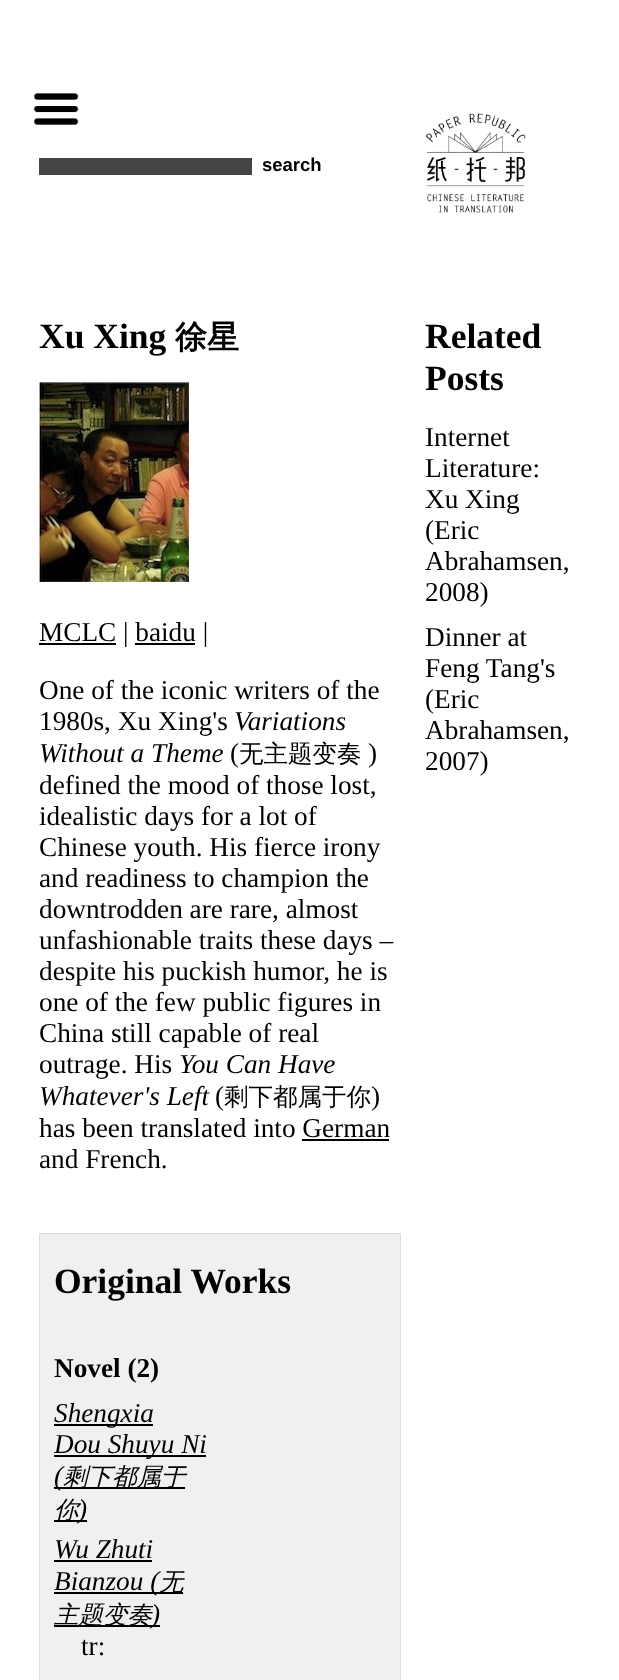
(async () => {
  const canvas = document.querySelector("canvas");
  canvas.width = 619;
  canvas.height = 1680;
  const ctx = canvas.getContext("2d");
  ctx.miterLimit = 4;
  ctx.fontKerning = "normal";
  async function loadImage(src) {
    const img = new Image();
    img.src = src;
    await img.decode();
    return img;
  }

  ctx.fillStyle = "#ffffff";
  ctx.fillRect(0, 0, 619, 1680);
  ctx.drawImage(await loadImage("img/1.png"), 34, 93, 45, 32);
  ctx.fillStyle = "#444444";
  ctx.fillRect(39, 158, 213, 17);
  ctx.drawImage(await loadImage("img/2.png"), 425, 113, 101, 100);
  ctx.drawImage(await loadImage("img/3.png"), 39, 382, 150, 200);
  for (const [x, y, w, h, color] of [
    [39, 643, 77, 2, "#000000"],
    [135, 643, 60, 2, "#000000"],
    [302, 1139, 87, 2, "#000000"],
  ]) {
    ctx.fillStyle = color;
    ctx.fillRect(x, y, w, h);
  }
  ctx.fillStyle = "#f0f0f0";
  ctx.beginPath();
  ctx.rect(39.5, 1233.5, 361, 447);
  ctx.fill();
  ctx.strokeStyle = "#dcdcdc";
  ctx.stroke();
  for (const [x, y, w, h, color] of [
    [54, 1424, 99, 2, "#000000"],
    [54, 1455, 152, 2, "#000000"],
    [54, 1487, 9, 2, "#000000"],
    [63, 1487, 122, 2, "#000000"],
    [54, 1520, 24, 2, "#000000"],
    [78, 1520, 9, 2, "#000000"],
    [54, 1560, 98, 2, "#000000"],
    [54, 1592, 105, 2, "#000000"],
    [159, 1592, 24, 2, "#000000"],
    [54, 1625, 97, 2, "#000000"],
    [151, 1625, 9, 2, "#000000"],
  ]) {
    ctx.fillStyle = color;
    ctx.fillRect(x, y, w, h);
  }
  ctx.font = "bold 18.5px Liberation Sans";
  ctx.fillText("search", 262, 171);
  ctx.font = "bold 35.5px Liberation Serif";
  ctx.fillText("Xu Xing", 39, 348);
  ctx.font = "bold 32px WenQuanYi Zen Hei";
  ctx.fillText("徐星", 175, 348);
  ctx.font = "27.25px Liberation Serif";
  for (const [text, x, y] of [
    ["MCLC | baidu |", 39, 641],
    ["One of the iconic writers of the", 39, 699],
    ["1980s, Xu Xing's", 39, 730],
  ]) {
    ctx.fillText(text, x, y);
  }
  ctx.font = "italic 27.25px Liberation Serif";
  ctx.fillText("Variations", 234, 730);
  ctx.fillText("Without a Theme", 39, 762);
  ctx.font = "27.25px Liberation Serif";
  ctx.fillText("(", 230, 762);
  ctx.font = "500 24.5px WenQuanYi Zen Hei";
  ctx.fillText("无主题变奏", 239, 762);
  ctx.font = "27.25px Liberation Serif";
  for (const [text, x, y] of [
    [")", 368, 762],
    ["defined the mood of those lost,", 39, 794],
    ["idealistic days for a lot of", 39, 825],
    ["Chinese youth. His fierce irony", 39, 856],
    ["and readiness to champion the", 39, 887],
    ["downtrodden are rare, almost", 39, 918],
    ["unfashionable traits these days –", 39, 949],
    ["despite his puckish humor, he is", 39, 980],
    ["one of the few public figures in", 39, 1011],
    ["China still capable of real", 39, 1042],
    ["outrage. His", 39, 1073],
  ]) {
    ctx.fillText(text, x, y);
  }
  ctx.font = "italic 27.25px Liberation Serif";
  ctx.fillText("You Can Have", 179, 1073);
  ctx.fillText("Whatever's Left", 39, 1105);
  ctx.font = "27.25px Liberation Serif";
  ctx.fillText("(", 215, 1105);
  ctx.font = "500 24.5px WenQuanYi Zen Hei";
  ctx.fillText("剩下都属于你", 224, 1105);
  ctx.font = "27.25px Liberation Serif";
  for (const [text, x, y] of [
    [")", 371, 1105],
    ["has been translated into German", 39, 1137],
    ["and French.", 39, 1168],
  ]) {
    ctx.fillText(text, x, y);
  }
  ctx.font = "bold 35.5px Liberation Serif";
  ctx.fillText("Original Works", 54, 1293);
  ctx.font = "bold 27.25px Liberation Serif";
  ctx.fillText("Novel (2)", 54, 1377);
  ctx.font = "italic 27.25px Liberation Serif";
  for (const [text, x, y] of [
    ["Shengxia", 54, 1422],
    ["Dou Shuyu Ni", 54, 1453],
    ["(", 54, 1485],
  ]) {
    ctx.fillText(text, x, y);
  }
  ctx.font = "italic 500 24.5px WenQuanYi Zen Hei";
  ctx.fillText("剩下都属于", 63, 1485);
  ctx.fillText("你", 54, 1518);
  ctx.font = "italic 27.25px Liberation Serif";
  for (const [text, x, y] of [
    [")", 78, 1518],
    ["Wu Zhuti", 54, 1558],
    ["Bianzou (", 54, 1590],
  ]) {
    ctx.fillText(text, x, y);
  }
  ctx.font = "italic 500 24.5px WenQuanYi Zen Hei";
  ctx.fillText("无", 159, 1590);
  ctx.fillText("主题变奏", 54, 1623);
  ctx.font = "italic 27.25px Liberation Serif";
  ctx.fillText(")", 151, 1623);
  ctx.font = "27.25px Liberation Serif";
  ctx.fillText("tr:", 81, 1655);
  ctx.font = "bold 35.5px Liberation Serif";
  ctx.fillText("Related", 425, 348);
  ctx.fillText("Posts", 425, 390);
  ctx.font = "27.25px Liberation Serif";
  for (const [text, x, y] of [
    ["Internet", 425, 446],
    ["Literature:", 425, 477],
    ["Xu Xing", 425, 508],
    ["(Eric", 425, 539],
    ["Abrahamsen,", 425, 570],
    ["2008)", 425, 601],
    ["Dinner at", 425, 646],
    ["Feng Tang's", 425, 677],
    ["(Eric", 425, 708],
    ["Abrahamsen,", 425, 739],
    ["2007)", 425, 770],
  ]) {
    ctx.fillText(text, x, y);
  }
})();
